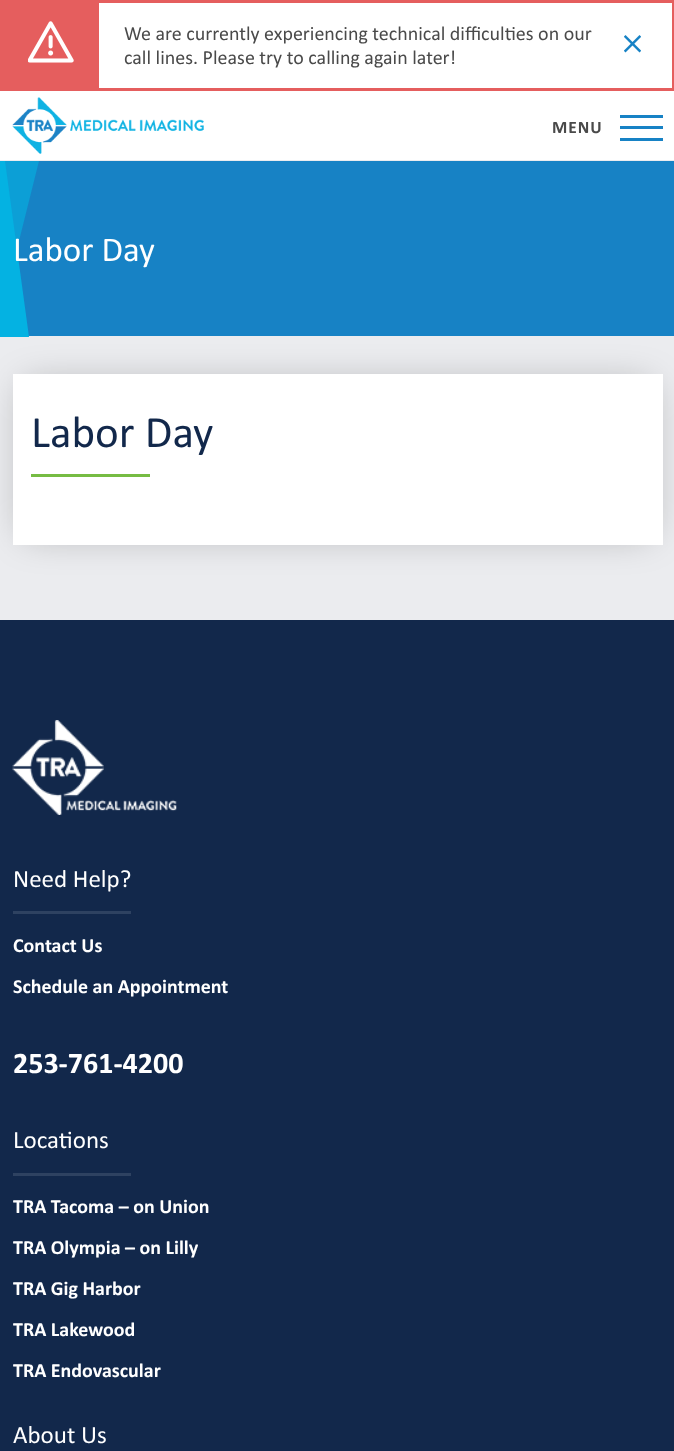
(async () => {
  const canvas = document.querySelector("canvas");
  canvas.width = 674;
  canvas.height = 1451;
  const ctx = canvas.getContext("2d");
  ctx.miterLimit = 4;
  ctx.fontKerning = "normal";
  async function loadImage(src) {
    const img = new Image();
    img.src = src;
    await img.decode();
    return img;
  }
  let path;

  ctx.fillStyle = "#ffffff";
  ctx.fillRect(0, 0, 674, 1451);
  ctx.strokeStyle = "#e55e5e";
  ctx.lineWidth = 3;
  ctx.strokeRect(1.5, 1.5, 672, 88);
  ctx.fillStyle = "#e55e5e";
  ctx.fillRect(3, 3, 96, 85);
  ctx.drawImage(await loadImage("img/1.png"), 28, 21, 46, 42);
  ctx.drawImage(await loadImage("img/2.png"), 624, 35, 17, 18);
  ctx.fillStyle = "#ebecef";
  ctx.fillRect(0, 336, 674, 284);
  ctx.fillRect(0, 160, 674, 1);
  ctx.drawImage(await loadImage("img/3.png"), 12, 97, 192, 57);
  for (const [x, y, w, h, color] of [
    [620, 115, 43, 3, "#1782c5"],
    [620, 126, 43, 3, "#1782c5"],
    [620, 138, 43, 3, "#1782c5"],
    [17, 161, 657, 175, "#1782c5"],
  ]) {
    ctx.fillStyle = color;
    ctx.fillRect(x, y, w, h);
  }
  ctx.fillStyle = "#0c9fd6";
  path = new Path2D("M5 161H39L-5 337H-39Z");
  ctx.fill(path);
  ctx.fillStyle = "#04b2e2";
  path = new Path2D("M-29 161H5L29 337H-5Z");
  ctx.fill(path);
  ctx.fillStyle = "rgba(0, 0, 0, 0.3)";
  ctx.filter = "blur(19px)";
  ctx.beginPath();
  ctx.rect(25, 386, 625, 147);
  ctx.fill();
  ctx.filter = "none";
  for (const [x, y, w, h, color] of [
    [13, 374, 650, 171, "#ffffff"],
    [31, 474, 119, 3, "#76bc43"],
    [0, 620, 674, 831, "#12284b"],
  ]) {
    ctx.fillStyle = color;
    ctx.fillRect(x, y, w, h);
  }
  ctx.drawImage(await loadImage("img/4.png"), 12, 720, 165, 95);
  ctx.fillStyle = "#2e4261";
  ctx.fillRect(13, 911, 118, 3);
  ctx.fillRect(13, 1173, 118, 3);
  ctx.font = "20px Calibri";
  ctx.fillStyle = "#4a4a4a";
  ctx.fillText("We are currently experiencing technical difficulties on our", 124, 40);
  ctx.fillText("call lines. Please try to calling again later!", 124, 64);
  ctx.letterSpacing = "1px";
  ctx.font = "bold 17.5px Calibri";
  ctx.fillText("MENU", 552, 133);
  ctx.letterSpacing = "0px";
  ctx.font = "35px Calibri";
  ctx.fillStyle = "#ffffff";
  ctx.fillText("Labor Day", 13, 261);
  ctx.font = "45px Calibri";
  ctx.fillStyle = "#12284b";
  ctx.fillText("Labor Day", 31, 447);
  ctx.font = "25px Calibri";
  ctx.fillStyle = "#ffffff";
  ctx.fillText("Need Help?", 13, 887);
  ctx.font = "bold 20px Calibri";
  ctx.fillText("Contact Us", 13, 952);
  ctx.fillText("Schedule an Appointment", 13, 993);
  ctx.font = "bold 30px Calibri";
  ctx.fillText("253-761-4200", 13, 1073);
  ctx.font = "25px Calibri";
  ctx.fillText("Locations", 13, 1148);
  ctx.font = "bold 20px Calibri";
  for (const [text, x, y] of [
    ["TRA Tacoma – on Union", 13, 1213],
    ["TRA Olympia – on Lilly", 13, 1254],
    ["TRA Gig Harbor", 13, 1295],
    ["TRA Lakewood", 13, 1336],
    ["TRA Endovascular", 13, 1377],
  ]) {
    ctx.fillText(text, x, y);
  }
  ctx.font = "25px Calibri";
  ctx.fillText("About Us", 13, 1443);
})();
